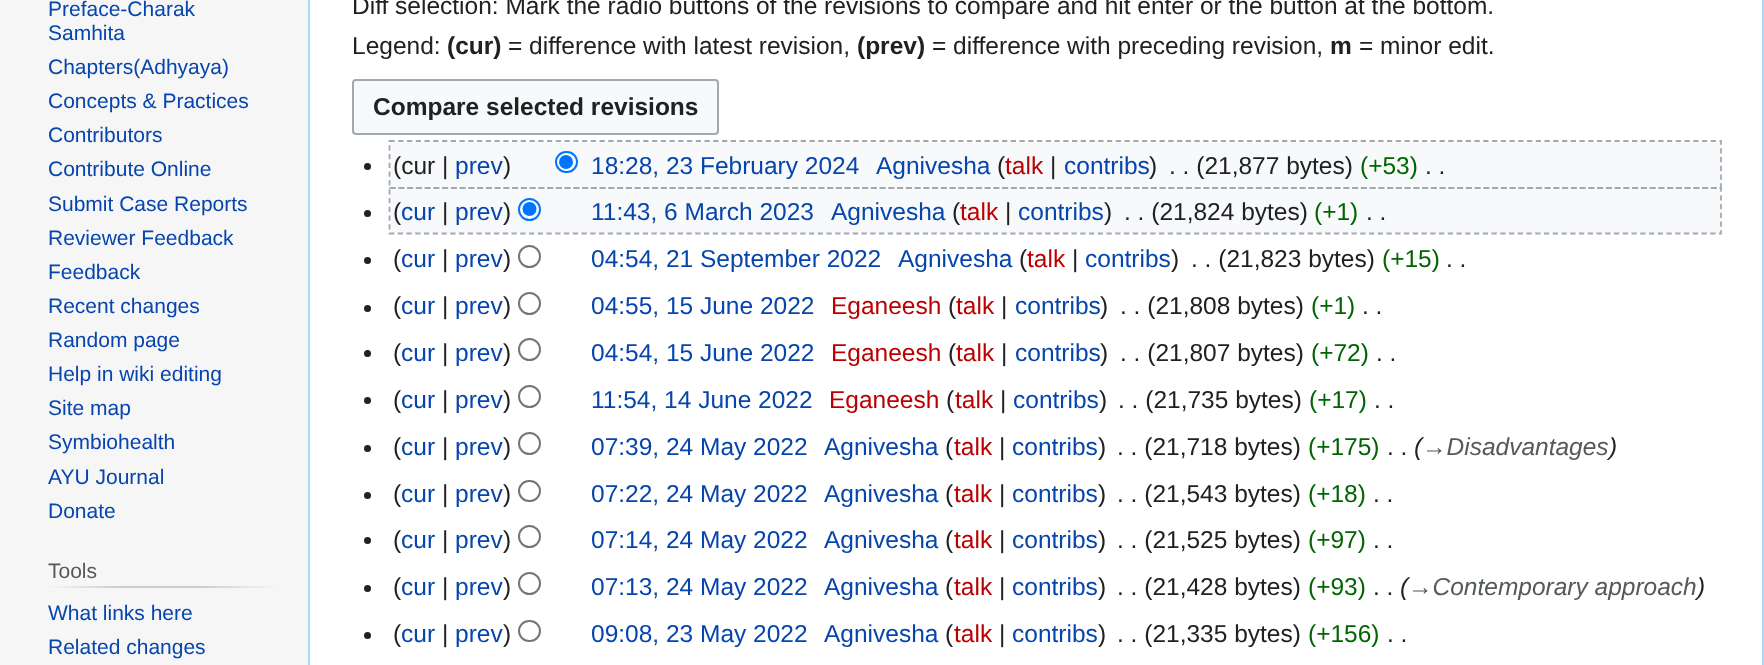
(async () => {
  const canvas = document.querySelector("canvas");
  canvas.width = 1764;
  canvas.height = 665;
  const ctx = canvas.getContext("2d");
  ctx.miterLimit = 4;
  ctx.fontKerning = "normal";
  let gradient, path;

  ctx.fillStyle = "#f6f6f6";
  ctx.fillRect(0, 0, 1764, 665);
  gradient = ctx.createLinearGradient(47, 587, 277, 587);
  gradient.addColorStop(0, "#f6f6f6");
  gradient.addColorStop(0.33, "#c8ccd1");
  gradient.addColorStop(0.66, "#c8ccd1");
  gradient.addColorStop(1, "#f6f6f6");
  ctx.fillStyle = gradient;
  ctx.fillRect(47, 586, 230, 2);
  ctx.fillStyle = "#ffffff";
  ctx.beginPath();
  ctx.rect(309, -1, 1454, 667);
  ctx.fill();
  ctx.strokeStyle = "#a7d7f9";
  ctx.lineWidth = 2;
  ctx.stroke();
  ctx.fillStyle = "#f8f9fa";
  ctx.beginPath();
  ctx.roundRect(353, 80, 365, 54, 3);
  ctx.fill();
  ctx.strokeStyle = "#a2a9b1";
  ctx.stroke();
  ctx.fillRect(390, 142, 1330, 45);
  ctx.fillStyle = "#202122";
  ctx.beginPath();
  ctx.arc(367.5, 166.5, 3.5, 0, Math.PI * 2);
  ctx.fill();
  ctx.fillStyle = "#ffffff";
  ctx.beginPath();
  ctx.roundRect(556, 152, 21, 20, 10);
  ctx.fill();
  ctx.strokeStyle = "#0075ff";
  ctx.stroke();
  ctx.fillStyle = "#0075ff";
  ctx.beginPath();
  ctx.arc(566, 162, 7, 0, Math.PI * 2);
  ctx.fill();
  ctx.fillStyle = "#f8f9fa";
  ctx.fillRect(390, 189, 1330, 44);
  ctx.fillStyle = "#202122";
  ctx.beginPath();
  ctx.arc(367.5, 213.5, 3.5, 0, Math.PI * 2);
  ctx.fill();
  ctx.fillStyle = "#ffffff";
  ctx.beginPath();
  ctx.arc(529.5, 209.5, 10.5, 0, Math.PI * 2);
  ctx.fill();
  ctx.stroke();
  ctx.fillStyle = "#0075ff";
  ctx.beginPath();
  ctx.arc(529.5, 209, 7, 0, Math.PI * 2);
  ctx.fill();
  ctx.fillStyle = "#202122";
  ctx.beginPath();
  ctx.arc(367.5, 260.5, 3.5, 0, Math.PI * 2);
  ctx.fill();
  ctx.beginPath();
  ctx.arc(529.5, 256.5, 10.5, 0, Math.PI * 2);
  ctx.strokeStyle = "#767676";
  ctx.stroke();
  ctx.beginPath();
  ctx.arc(367.5, 308.5, 3.5, 0, Math.PI * 2);
  ctx.fill();
  ctx.beginPath();
  ctx.arc(529.5, 303.5, 10.5, 0, Math.PI * 2);
  ctx.stroke();
  ctx.beginPath();
  ctx.arc(367.5, 353.5, 3.5, 0, Math.PI * 2);
  ctx.fill();
  ctx.beginPath();
  ctx.arc(529.5, 349.5, 10.5, 0, Math.PI * 2);
  ctx.stroke();
  ctx.beginPath();
  ctx.arc(367.5, 400.5, 3.5, 0, Math.PI * 2);
  ctx.fill();
  ctx.beginPath();
  ctx.arc(529.5, 396.5, 10.5, 0, Math.PI * 2);
  ctx.stroke();
  ctx.beginPath();
  ctx.arc(367.5, 448.5, 3.5, 0, Math.PI * 2);
  ctx.fill();
  ctx.beginPath();
  ctx.arc(529.5, 443.5, 10.5, 0, Math.PI * 2);
  ctx.stroke();
  ctx.beginPath();
  ctx.arc(367.5, 495.5, 3.5, 0, Math.PI * 2);
  ctx.fill();
  ctx.beginPath();
  ctx.roundRect(519, 481, 21, 20, 10);
  ctx.stroke();
  ctx.beginPath();
  ctx.arc(367.5, 540.5, 3.5, 0, Math.PI * 2);
  ctx.fill();
  ctx.beginPath();
  ctx.arc(529.5, 536.5, 10.5, 0, Math.PI * 2);
  ctx.stroke();
  ctx.beginPath();
  ctx.arc(367.5, 588.5, 3.5, 0, Math.PI * 2);
  ctx.fill();
  ctx.beginPath();
  ctx.arc(529.5, 583.5, 10.5, 0, Math.PI * 2);
  ctx.stroke();
  ctx.beginPath();
  ctx.arc(367.5, 635.5, 3.5, 0, Math.PI * 2);
  ctx.fill();
  ctx.beginPath();
  ctx.roundRect(519, 621, 21, 20, 10);
  ctx.stroke();
  ctx.font = "21px Liberation Sans";
  ctx.fillStyle = "#0645ad";
  for (const [text, x, y] of [
    ["Preface-Charak", 48, 16],
    ["Samhita", 48, 40],
    ["Chapters(Adhyaya)", 48, 74],
    ["Concepts & Practices", 48, 108],
    ["Contributors", 48, 142],
    ["Contribute Online", 48, 176],
    ["Submit Case Reports", 48, 211],
    ["Reviewer Feedback", 48, 245],
    ["Feedback", 48, 279],
    ["Recent changes", 48, 313],
    ["Random page", 48, 347],
    ["Help in wiki editing", 48, 381],
    ["Site map", 48, 415],
    ["Symbiohealth", 48, 449],
    ["AYU Journal", 48, 484],
    ["Donate", 48, 518],
  ]) {
    ctx.fillText(text, x, y);
  }
  ctx.fillStyle = "#54595d";
  ctx.fillText("Tools", 48, 578);
  ctx.fillStyle = "#0645ad";
  ctx.fillText("What links here", 48, 620);
  ctx.fillText("Related changes", 48, 654);
  ctx.font = "24.5px Liberation Sans";
  ctx.fillStyle = "#202122";
  ctx.fillText("Diff selection: Mark the radio buttons of the revisions to compare and hit enter or the button at the bottom.", 352, 14);
  ctx.fillText("Legend:", 352, 54);
  ctx.font = "bold 24.5px Liberation Sans";
  ctx.fillText("(cur)", 447, 54);
  ctx.font = "24.5px Liberation Sans";
  ctx.fillText("= difference with latest revision,", 508, 54);
  ctx.font = "bold 24.5px Liberation Sans";
  ctx.fillText("(prev)", 857, 54);
  ctx.font = "24.5px Liberation Sans";
  ctx.fillText("= difference with preceding revision,", 932, 54);
  ctx.font = "bold 24.5px Liberation Sans";
  ctx.fillText("m", 1330, 54);
  ctx.font = "24.5px Liberation Sans";
  ctx.fillText("= minor edit.", 1359, 54);
  ctx.font = "bold 24.5px Liberation Sans";
  ctx.fillText("Compare selected revisions", 373, 115);
  ctx.font = "24.5px Liberation Sans";
  ctx.fillText("(cur |", 393, 174);
  ctx.fillStyle = "#0645ad";
  ctx.fillText("prev", 455, 174);
  ctx.fillStyle = "#202122";
  ctx.fillText(")", 503, 174);
  ctx.fillStyle = "#0645ad";
  ctx.fillText("18:28, 23 February 2024", 591, 174);
  ctx.fillText("Agnivesha", 876, 174);
  ctx.fillStyle = "#202122";
  ctx.fillText("(", 997, 174);
  ctx.fillStyle = "#ba0000";
  ctx.fillText("talk", 1005, 174);
  ctx.fillStyle = "#202122";
  ctx.fillText("|", 1050, 174);
  ctx.fillStyle = "#0645ad";
  ctx.fillText("contribs", 1064, 174);
  ctx.fillStyle = "#202122";
  ctx.fillText(")", 1149, 174);
  ctx.fillText(". . (21,877 bytes)", 1169, 174);
  ctx.fillStyle = "#006400";
  ctx.fillText("(+53)", 1360, 174);
  ctx.fillStyle = "#202122";
  ctx.fillText(". .", 1425, 174);
  path = new Path2D("M389.5 141H1721V188H389.5Z");
  ctx.strokeStyle = "#a2a9b1";
  ctx.lineWidth = 1.8;
  ctx.setLineDash([5.25, 3.5]);
  ctx.stroke(path);
  ctx.fillText("(", 393, 220);
  ctx.fillStyle = "#0645ad";
  ctx.fillText("cur", 401, 220);
  ctx.fillStyle = "#202122";
  ctx.fillText("|", 442, 220);
  ctx.fillStyle = "#0645ad";
  ctx.fillText("prev", 455, 220);
  ctx.fillStyle = "#202122";
  ctx.fillText(")", 503, 220);
  ctx.fillStyle = "#0645ad";
  ctx.fillText("11:43, 6 March 2023", 591, 220);
  ctx.fillText("Agnivesha", 831, 220);
  ctx.fillStyle = "#202122";
  ctx.fillText("(", 952, 220);
  ctx.fillStyle = "#ba0000";
  ctx.fillText("talk", 960, 220);
  ctx.fillStyle = "#202122";
  ctx.fillText("|", 1005, 220);
  ctx.fillStyle = "#0645ad";
  ctx.fillText("contribs", 1018, 220);
  ctx.fillStyle = "#202122";
  ctx.fillText(")", 1104, 220);
  ctx.fillText(". . (21,824 bytes)", 1124, 220);
  ctx.fillStyle = "#006400";
  ctx.fillText("(+1)", 1314, 220);
  ctx.fillStyle = "#202122";
  ctx.fillText(". .", 1366, 220);
  path = new Path2D("M389.5 188H1721V233.5H389.5Z");
  ctx.stroke(path);
  ctx.fillText("(", 393, 267);
  ctx.fillStyle = "#0645ad";
  ctx.fillText("cur", 401, 267);
  ctx.fillStyle = "#202122";
  ctx.fillText("|", 442, 267);
  ctx.fillStyle = "#0645ad";
  ctx.fillText("prev", 455, 267);
  ctx.fillStyle = "#202122";
  ctx.fillText(")", 503, 267);
  ctx.fillStyle = "#0645ad";
  ctx.fillText("04:54, 21 September 2022", 591, 267);
  ctx.fillText("Agnivesha", 898, 267);
  ctx.fillStyle = "#202122";
  ctx.fillText("(", 1019, 267);
  ctx.fillStyle = "#ba0000";
  ctx.fillText("talk", 1027, 267);
  ctx.fillStyle = "#202122";
  ctx.fillText("|", 1072, 267);
  ctx.fillStyle = "#0645ad";
  ctx.fillText("contribs", 1085, 267);
  ctx.fillStyle = "#202122";
  ctx.fillText(")", 1171, 267);
  ctx.fillText(". . (21,823 bytes)", 1191, 267);
  ctx.fillStyle = "#006400";
  ctx.fillText("(+15)", 1382, 267);
  ctx.fillStyle = "#202122";
  ctx.fillText(". .", 1446, 267);
  ctx.fillText("(", 393, 314);
  ctx.fillStyle = "#0645ad";
  ctx.fillText("cur", 401, 314);
  ctx.fillStyle = "#202122";
  ctx.fillText("|", 442, 314);
  ctx.fillStyle = "#0645ad";
  ctx.fillText("prev", 455, 314);
  ctx.fillStyle = "#202122";
  ctx.fillText(")", 503, 314);
  ctx.fillStyle = "#0645ad";
  ctx.fillText("04:55, 15 June 2022", 591, 314);
  ctx.fillStyle = "#ba0000";
  ctx.fillText("Eganeesh", 831, 314);
  ctx.fillStyle = "#202122";
  ctx.fillText("(", 948, 314);
  ctx.fillStyle = "#ba0000";
  ctx.fillText("talk", 956, 314);
  ctx.fillStyle = "#202122";
  ctx.fillText("|", 1001, 314);
  ctx.fillStyle = "#0645ad";
  ctx.fillText("contribs", 1015, 314);
  ctx.fillStyle = "#202122";
  ctx.fillText(")", 1100, 314);
  ctx.fillText(". . (21,808 bytes)", 1120, 314);
  ctx.fillStyle = "#006400";
  ctx.fillText("(+1)", 1311, 314);
  ctx.fillStyle = "#202122";
  ctx.fillText(". .", 1362, 314);
  ctx.fillText("(", 393, 361);
  ctx.fillStyle = "#0645ad";
  ctx.fillText("cur", 401, 361);
  ctx.fillStyle = "#202122";
  ctx.fillText("|", 442, 361);
  ctx.fillStyle = "#0645ad";
  ctx.fillText("prev", 455, 361);
  ctx.fillStyle = "#202122";
  ctx.fillText(")", 503, 361);
  ctx.fillStyle = "#0645ad";
  ctx.fillText("04:54, 15 June 2022", 591, 361);
  ctx.fillStyle = "#ba0000";
  ctx.fillText("Eganeesh", 831, 361);
  ctx.fillStyle = "#202122";
  ctx.fillText("(", 948, 361);
  ctx.fillStyle = "#ba0000";
  ctx.fillText("talk", 956, 361);
  ctx.fillStyle = "#202122";
  ctx.fillText("|", 1001, 361);
  ctx.fillStyle = "#0645ad";
  ctx.fillText("contribs", 1015, 361);
  ctx.fillStyle = "#202122";
  ctx.fillText(")", 1100, 361);
  ctx.fillText(". . (21,807 bytes)", 1120, 361);
  ctx.fillStyle = "#006400";
  ctx.fillText("(+72)", 1311, 361);
  ctx.fillStyle = "#202122";
  ctx.fillText(". .", 1376, 361);
  ctx.fillText("(", 393, 408);
  ctx.fillStyle = "#0645ad";
  ctx.fillText("cur", 401, 408);
  ctx.fillStyle = "#202122";
  ctx.fillText("|", 442, 408);
  ctx.fillStyle = "#0645ad";
  ctx.fillText("prev", 455, 408);
  ctx.fillStyle = "#202122";
  ctx.fillText(")", 503, 408);
  ctx.fillStyle = "#0645ad";
  ctx.fillText("11:54, 14 June 2022", 591, 408);
  ctx.fillStyle = "#ba0000";
  ctx.fillText("Eganeesh", 829, 408);
  ctx.fillStyle = "#202122";
  ctx.fillText("(", 946, 408);
  ctx.fillStyle = "#ba0000";
  ctx.fillText("talk", 955, 408);
  ctx.fillStyle = "#202122";
  ctx.fillText("|", 1000, 408);
  ctx.fillStyle = "#0645ad";
  ctx.fillText("contribs", 1013, 408);
  ctx.fillStyle = "#202122";
  ctx.fillText(")", 1099, 408);
  ctx.fillText(". . (21,735 bytes)", 1118, 408);
  ctx.fillStyle = "#006400";
  ctx.fillText("(+17)", 1309, 408);
  ctx.fillStyle = "#202122";
  ctx.fillText(". .", 1374, 408);
  ctx.fillText("(", 393, 455);
  ctx.fillStyle = "#0645ad";
  ctx.fillText("cur", 401, 455);
  ctx.fillStyle = "#202122";
  ctx.fillText("|", 442, 455);
  ctx.fillStyle = "#0645ad";
  ctx.fillText("prev", 455, 455);
  ctx.fillStyle = "#202122";
  ctx.fillText(")", 503, 455);
  ctx.fillStyle = "#0645ad";
  ctx.fillText("07:39, 24 May 2022", 591, 455);
  ctx.fillText("Agnivesha", 824, 455);
  ctx.fillStyle = "#202122";
  ctx.fillText("(", 945, 455);
  ctx.fillStyle = "#ba0000";
  ctx.fillText("talk", 954, 455);
  ctx.fillStyle = "#202122";
  ctx.fillText("|", 999, 455);
  ctx.fillStyle = "#0645ad";
  ctx.fillText("contribs", 1012, 455);
  ctx.fillStyle = "#202122";
  ctx.fillText(")", 1098, 455);
  ctx.fillText(". . (21,718 bytes)", 1117, 455);
  ctx.fillStyle = "#006400";
  ctx.fillText("(+175)", 1308, 455);
  ctx.font = "italic 24.5px Liberation Sans";
  ctx.fillStyle = "#202122";
  ctx.fillText("(", 1414, 455);
  ctx.fillStyle = "#54595d";
  ctx.fillText("→Disadvantages", 1422, 455);
  ctx.fillStyle = "#202122";
  ctx.fillText(")", 1609, 455);
  ctx.font = "24.5px Liberation Sans";
  ctx.fillText(". .", 1387, 455);
  ctx.fillText("(", 393, 502);
  ctx.fillStyle = "#0645ad";
  ctx.fillText("cur", 401, 502);
  ctx.fillStyle = "#202122";
  ctx.fillText("|", 442, 502);
  ctx.fillStyle = "#0645ad";
  ctx.fillText("prev", 455, 502);
  ctx.fillStyle = "#202122";
  ctx.fillText(")", 503, 502);
  ctx.fillStyle = "#0645ad";
  ctx.fillText("07:22, 24 May 2022", 591, 502);
  ctx.fillText("Agnivesha", 824, 502);
  ctx.fillStyle = "#202122";
  ctx.fillText("(", 945, 502);
  ctx.fillStyle = "#ba0000";
  ctx.fillText("talk", 954, 502);
  ctx.fillStyle = "#202122";
  ctx.fillText("|", 999, 502);
  ctx.fillStyle = "#0645ad";
  ctx.fillText("contribs", 1012, 502);
  ctx.fillStyle = "#202122";
  ctx.fillText(")", 1098, 502);
  ctx.fillText(". . (21,543 bytes)", 1117, 502);
  ctx.fillStyle = "#006400";
  ctx.fillText("(+18)", 1308, 502);
  ctx.fillStyle = "#202122";
  ctx.fillText(". .", 1373, 502);
  ctx.fillText("(", 393, 548);
  ctx.fillStyle = "#0645ad";
  ctx.fillText("cur", 401, 548);
  ctx.fillStyle = "#202122";
  ctx.fillText("|", 442, 548);
  ctx.fillStyle = "#0645ad";
  ctx.fillText("prev", 455, 548);
  ctx.fillStyle = "#202122";
  ctx.fillText(")", 503, 548);
  ctx.fillStyle = "#0645ad";
  ctx.fillText("07:14, 24 May 2022", 591, 548);
  ctx.fillText("Agnivesha", 824, 548);
  ctx.fillStyle = "#202122";
  ctx.fillText("(", 945, 548);
  ctx.fillStyle = "#ba0000";
  ctx.fillText("talk", 954, 548);
  ctx.fillStyle = "#202122";
  ctx.fillText("|", 999, 548);
  ctx.fillStyle = "#0645ad";
  ctx.fillText("contribs", 1012, 548);
  ctx.fillStyle = "#202122";
  ctx.fillText(")", 1098, 548);
  ctx.fillText(". . (21,525 bytes)", 1117, 548);
  ctx.fillStyle = "#006400";
  ctx.fillText("(+97)", 1308, 548);
  ctx.fillStyle = "#202122";
  ctx.fillText(". .", 1373, 548);
  ctx.fillText("(", 393, 595);
  ctx.fillStyle = "#0645ad";
  ctx.fillText("cur", 401, 595);
  ctx.fillStyle = "#202122";
  ctx.fillText("|", 442, 595);
  ctx.fillStyle = "#0645ad";
  ctx.fillText("prev", 455, 595);
  ctx.fillStyle = "#202122";
  ctx.fillText(")", 503, 595);
  ctx.fillStyle = "#0645ad";
  ctx.fillText("07:13, 24 May 2022", 591, 595);
  ctx.fillText("Agnivesha", 824, 595);
  ctx.fillStyle = "#202122";
  ctx.fillText("(", 945, 595);
  ctx.fillStyle = "#ba0000";
  ctx.fillText("talk", 954, 595);
  ctx.fillStyle = "#202122";
  ctx.fillText("|", 999, 595);
  ctx.fillStyle = "#0645ad";
  ctx.fillText("contribs", 1012, 595);
  ctx.fillStyle = "#202122";
  ctx.fillText(")", 1098, 595);
  ctx.fillText(". . (21,428 bytes)", 1117, 595);
  ctx.fillStyle = "#006400";
  ctx.fillText("(+93)", 1308, 595);
  ctx.font = "italic 24.5px Liberation Sans";
  ctx.fillStyle = "#202122";
  ctx.fillText("(", 1400, 595);
  ctx.fillStyle = "#54595d";
  ctx.fillText("→Contemporary approach", 1408, 595);
  ctx.fillStyle = "#202122";
  ctx.fillText(")", 1697, 595);
  ctx.font = "24.5px Liberation Sans";
  ctx.fillText(". .", 1373, 595);
  ctx.fillText("(", 393, 642);
  ctx.fillStyle = "#0645ad";
  ctx.fillText("cur", 401, 642);
  ctx.fillStyle = "#202122";
  ctx.fillText("|", 442, 642);
  ctx.fillStyle = "#0645ad";
  ctx.fillText("prev", 455, 642);
  ctx.fillStyle = "#202122";
  ctx.fillText(")", 503, 642);
  ctx.fillStyle = "#0645ad";
  ctx.fillText("09:08, 23 May 2022", 591, 642);
  ctx.fillText("Agnivesha", 824, 642);
  ctx.fillStyle = "#202122";
  ctx.fillText("(", 945, 642);
  ctx.fillStyle = "#ba0000";
  ctx.fillText("talk", 954, 642);
  ctx.fillStyle = "#202122";
  ctx.fillText("|", 999, 642);
  ctx.fillStyle = "#0645ad";
  ctx.fillText("contribs", 1012, 642);
  ctx.fillStyle = "#202122";
  ctx.fillText(")", 1098, 642);
  ctx.fillText(". . (21,335 bytes)", 1117, 642);
  ctx.fillStyle = "#006400";
  ctx.fillText("(+156)", 1308, 642);
  ctx.fillStyle = "#202122";
  ctx.fillText(". .", 1387, 642);
})();
